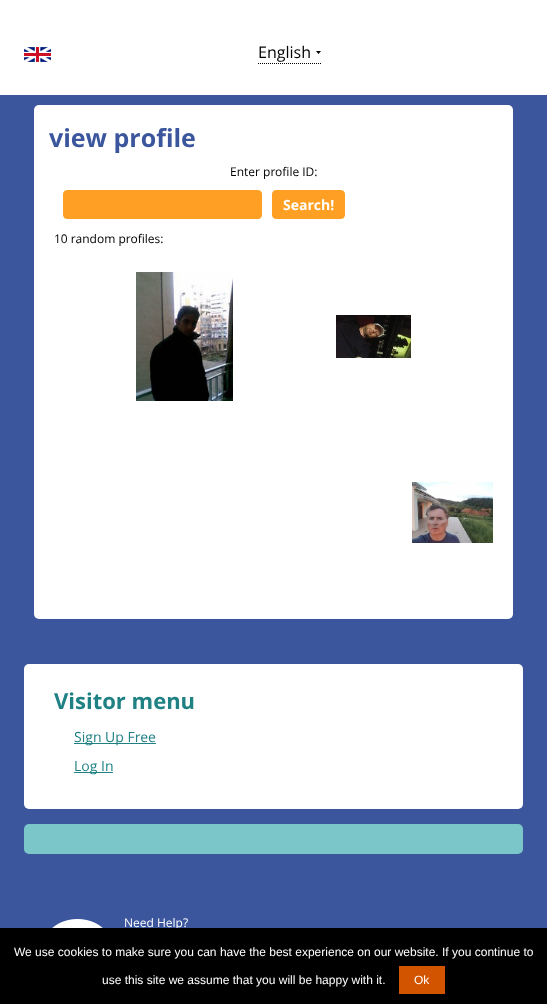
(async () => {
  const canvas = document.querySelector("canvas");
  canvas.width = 547;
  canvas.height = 1004;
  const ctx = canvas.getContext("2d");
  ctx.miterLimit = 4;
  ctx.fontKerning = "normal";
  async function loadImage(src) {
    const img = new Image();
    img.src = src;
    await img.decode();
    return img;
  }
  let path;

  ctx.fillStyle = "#ffffff";
  ctx.fillRect(0, 0, 547, 1004);
  ctx.drawImage(await loadImage("img/1.png"), 24, 47, 27, 15);
  path = new Path2D("M258 63.5H321");
  ctx.strokeStyle = "#000000";
  ctx.setLineDash([1, 1]);
  ctx.stroke(path);
  ctx.drawImage(await loadImage("img/2.png"), 316, 51, 5, 3);
  ctx.fillStyle = "#3b569d";
  ctx.fillRect(0, 95, 547, 833);
  ctx.fillStyle = "#ffffff";
  ctx.beginPath();
  ctx.roundRect(34, 105, 479, 514, 5);
  ctx.fill();
  ctx.fillStyle = "#ff9f23";
  ctx.beginPath();
  ctx.roundRect(63.5, 190.5, 198, 28, 3.5);
  ctx.fill();
  ctx.strokeStyle = "#ff9f23";
  ctx.setLineDash([]);
  ctx.stroke();
  ctx.beginPath();
  ctx.roundRect(272.5, 190.5, 72, 28, 3.5);
  ctx.fill();
  ctx.stroke();
  ctx.drawImage(await loadImage("img/3.png"), 136, 272, 97, 129);
  ctx.drawImage(await loadImage("img/4.png"), 336, 315, 75, 43);
  ctx.drawImage(await loadImage("img/5.png"), 412, 482, 81, 61);
  ctx.fillStyle = "#ffffff";
  ctx.beginPath();
  ctx.roundRect(24, 664, 499, 145, 5);
  ctx.fill();
  ctx.fillStyle = "#1f8184";
  ctx.fillRect(74, 743, 82, 1);
  ctx.fillRect(74, 772, 39, 1);
  ctx.fillStyle = "#7ac6c8";
  ctx.beginPath();
  ctx.roundRect(24, 824, 499, 30, 5);
  ctx.fill();
  ctx.drawImage(await loadImage("img/6.png"), 52, 919, 51, 9);
  ctx.font = "16px Open Sans";
  ctx.fillStyle = "#000000";
  ctx.fillText("English", 258, 58);
  ctx.font = "bold 25px Open Sans";
  ctx.fillStyle = "#3b569d";
  ctx.fillText("view profile", 49, 147);
  ctx.font = "12px Open Sans";
  ctx.fillStyle = "#000000";
  ctx.fillText("Enter profile ID:", 230, 176);
  ctx.font = "bold 14px Open Sans";
  ctx.fillStyle = "#ffffff";
  ctx.fillText("Search!", 283, 210);
  ctx.font = "12px Open Sans";
  ctx.fillStyle = "#000000";
  ctx.fillText("10 random profiles:", 54, 243);
  ctx.font = "bold 22px Open Sans";
  ctx.fillStyle = "#1f8184";
  ctx.fillText("Visitor menu", 54, 709);
  ctx.font = "14px Open Sans";
  ctx.fillText("Sign Up Free", 74, 742);
  ctx.fillText("Log In", 74, 771);
  ctx.font = "12px Open Sans";
  ctx.fillStyle = "#ffffff";
  ctx.fillText("Need Help?", 124, 927);
  ctx.fillStyle = "#000000";
  ctx.fillRect(0, 928, 547, 76);
  ctx.font = "12px Liberation Sans";
  ctx.fillStyle = "#ffffff";
  ctx.fillText("We use cookies to make sure you can have the best experience on our website. If you continue to", 14, 956);
  ctx.fillText("use this site we assume that you will be happy with it.", 102, 984);
  ctx.fillStyle = "#d35400";
  ctx.fillRect(399, 966, 46, 28);
  ctx.fillStyle = "#ffffff";
  ctx.fillText("Ok", 414, 984);
})();
